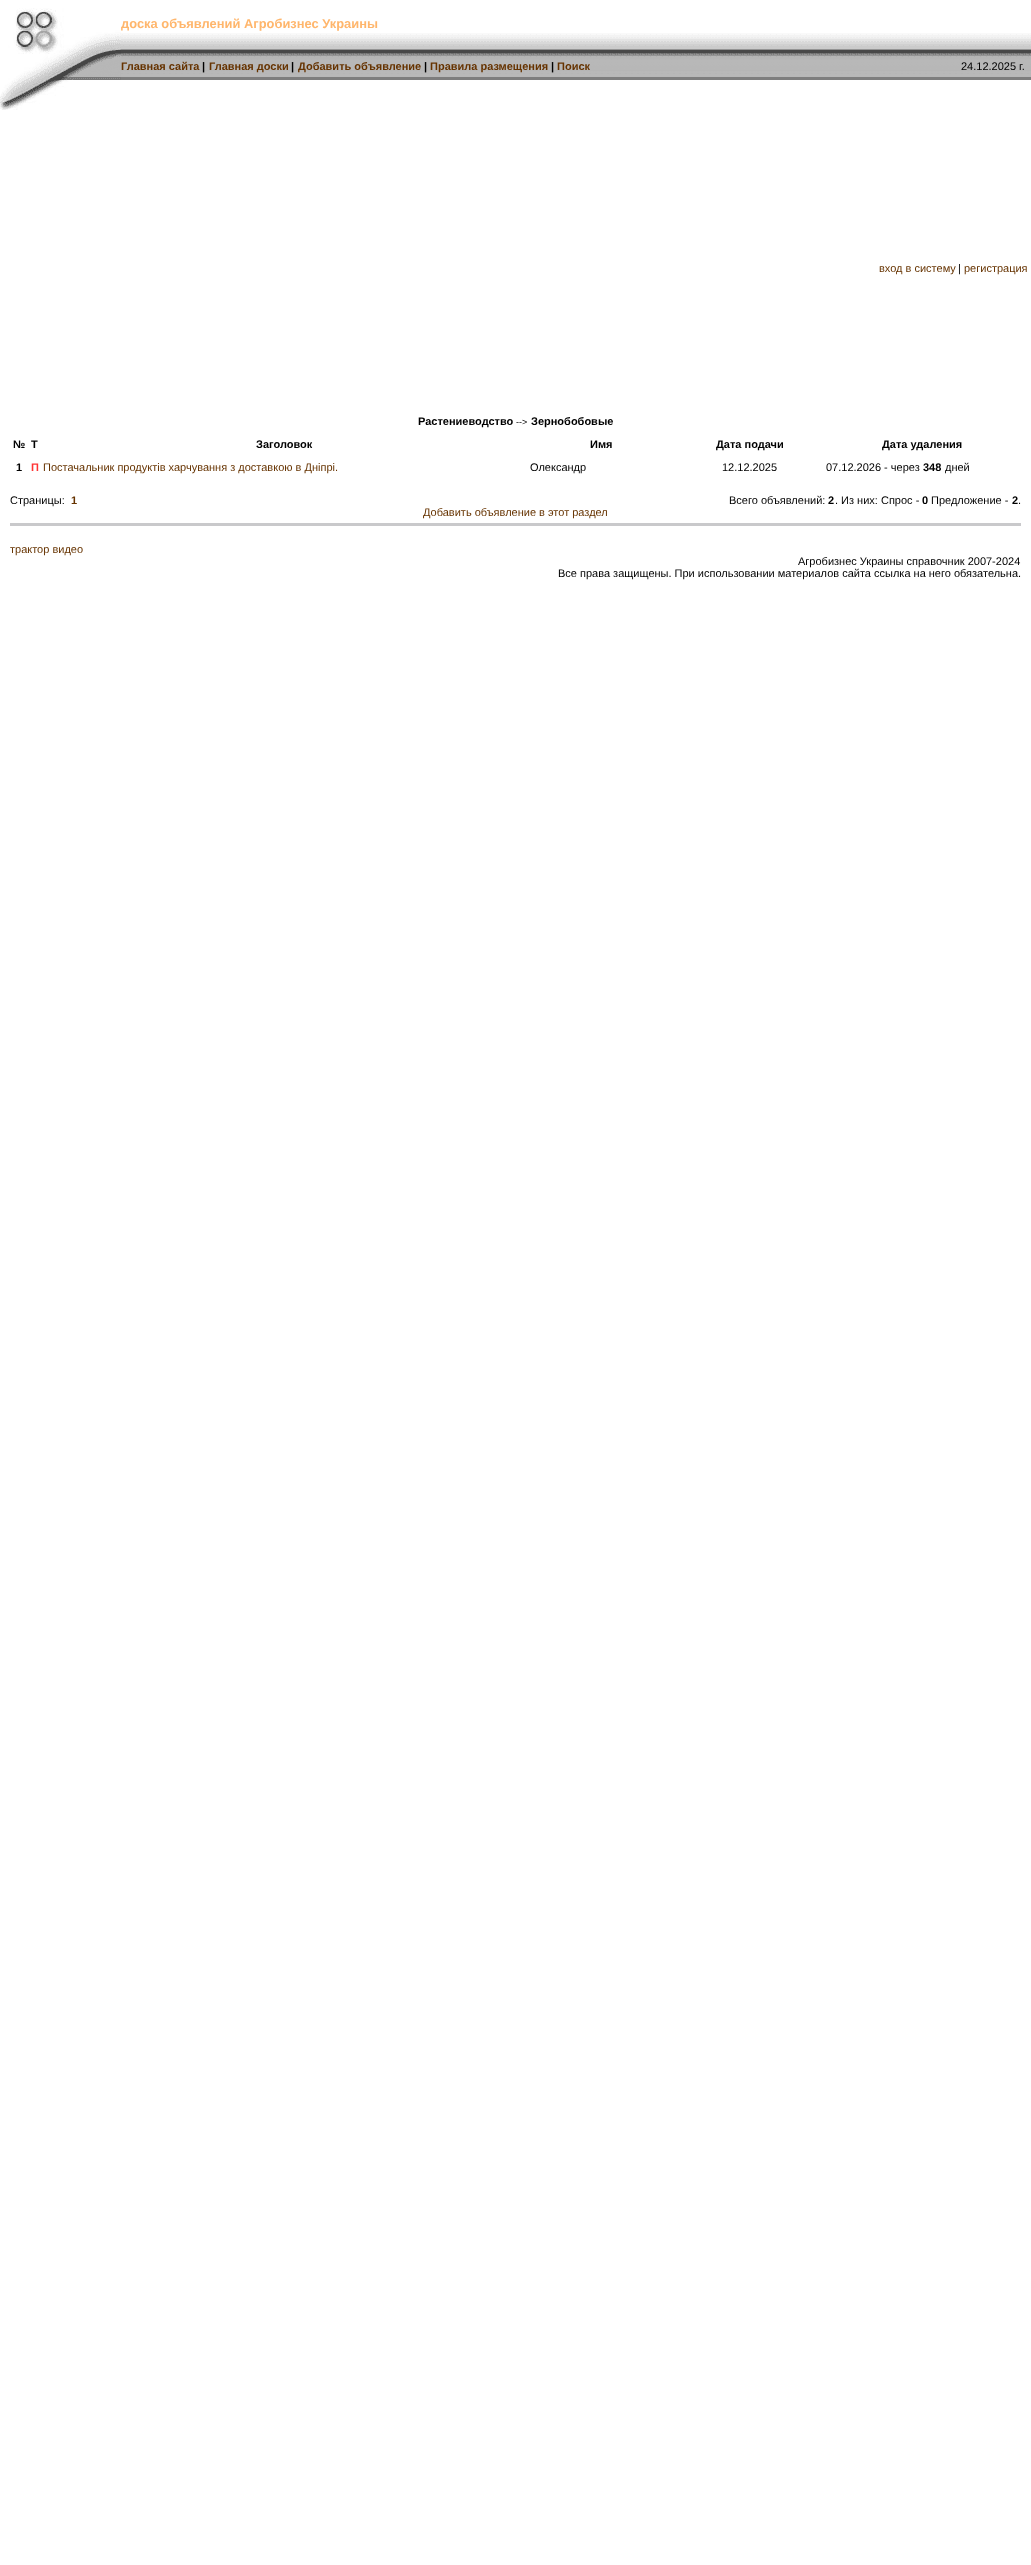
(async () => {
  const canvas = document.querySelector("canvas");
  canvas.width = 1031;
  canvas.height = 2565;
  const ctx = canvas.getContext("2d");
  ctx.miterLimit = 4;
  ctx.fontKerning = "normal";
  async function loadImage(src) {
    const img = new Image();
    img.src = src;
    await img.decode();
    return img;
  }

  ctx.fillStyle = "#ffffff";
  ctx.fillRect(0, 0, 1031, 2565);
  ctx.drawImage(await loadImage("img/1.png"), 0, 8, 121, 102);
  ctx.drawImage(await loadImage("img/2.png"), 121, 33, 910, 47);
  ctx.fillStyle = "#c9c9cb";
  ctx.fillRect(10, 523, 1011, 3);
  ctx.font = "bold 12.9px Liberation Sans";
  ctx.fillStyle = "#ffb66c";
  ctx.fillText("доска объявлений Агробизнес Украины", 121, 28);
  ctx.font = "bold 11px Liberation Sans";
  ctx.fillStyle = "#663300";
  ctx.fillText("Главная сайта", 121, 70);
  ctx.fillStyle = "#000000";
  ctx.fillText("|", 202, 70);
  ctx.fillStyle = "#663300";
  ctx.fillText("Главная доски", 209, 70);
  ctx.fillStyle = "#000000";
  ctx.fillText("|", 291, 70);
  ctx.fillStyle = "#663300";
  ctx.fillText("Добавить объявление", 298, 70);
  ctx.fillStyle = "#000000";
  ctx.fillText("|", 424, 70);
  ctx.fillStyle = "#663300";
  ctx.fillText("Правила размещения", 430, 70);
  ctx.fillStyle = "#000000";
  ctx.fillText("|", 551, 70);
  ctx.fillStyle = "#663300";
  ctx.fillText("Поиск", 557, 70);
  ctx.font = "11px Liberation Sans";
  ctx.fillStyle = "#000000";
  ctx.fillText("24.12.2025 г.", 961, 70);
  ctx.fillStyle = "#663300";
  ctx.fillText("вход в систему", 879, 272);
  ctx.fillStyle = "#000000";
  ctx.fillText("|", 958, 272);
  ctx.fillStyle = "#663300";
  ctx.fillText("регистрация", 964, 272);
  ctx.font = "bold 11px Liberation Sans";
  ctx.fillStyle = "#000000";
  ctx.fillText("Растениеводство", 418, 425);
  ctx.font = "9px Liberation Sans";
  ctx.fillText("-->", 516, 425);
  ctx.font = "bold 11px Liberation Sans";
  for (const [text, x, y] of [
    ["Зернобобовые", 531, 425],
    ["№", 13, 448],
    ["Т", 31, 448],
    ["Заголовок", 256, 448],
    ["Имя", 590, 448],
    ["Дата подачи", 716, 448],
    ["Дата удаления", 882, 448],
    ["1", 16, 471],
  ]) {
    ctx.fillText(text, x, y);
  }
  ctx.fillStyle = "#ff3333";
  ctx.fillText("П", 31, 471);
  ctx.font = "11px Liberation Sans";
  ctx.fillStyle = "#663300";
  ctx.fillText("Постачальник продуктів харчування з доставкою в Дніпрі.", 43, 471);
  ctx.fillStyle = "#000000";
  for (const [text, x, y] of [
    ["Олександр", 530, 471],
    ["12.12.2025", 722, 471],
    ["07.12.2026 - через", 826, 471],
  ]) {
    ctx.fillText(text, x, y);
  }
  ctx.font = "bold 11px Liberation Sans";
  ctx.fillText("348", 923, 471);
  ctx.font = "11px Liberation Sans";
  ctx.fillText("дней", 945, 471);
  ctx.fillText("Страницы:", 10, 504);
  ctx.font = "bold 11px Liberation Sans";
  ctx.fillStyle = "#663300";
  ctx.fillText("1", 71, 504);
  ctx.font = "11px Liberation Sans";
  ctx.fillStyle = "#000000";
  ctx.fillText("Всего объявлений:", 729, 504);
  ctx.font = "bold 11px Liberation Sans";
  ctx.fillText("2", 828, 504);
  ctx.font = "11px Liberation Sans";
  ctx.fillText(". Из них: Спрос -", 835, 504);
  ctx.font = "bold 11px Liberation Sans";
  ctx.fillText("0", 922, 504);
  ctx.font = "11px Liberation Sans";
  ctx.fillText("Предложение -", 931, 504);
  ctx.font = "bold 11px Liberation Sans";
  ctx.fillText("2", 1012, 504);
  ctx.font = "11px Liberation Sans";
  ctx.fillText(".", 1018, 504);
  ctx.fillStyle = "#663300";
  ctx.fillText("Добавить объявление в этот раздел", 423, 516);
  ctx.fillText("трактор видео", 10, 553);
  ctx.fillStyle = "#000000";
  ctx.fillText("Агробизнес Украины справочник 2007-2024", 798, 565);
  ctx.fillText("Все права защищены. При использовании материалов сайта ссылка на него обязательна.", 558, 577);
})();
